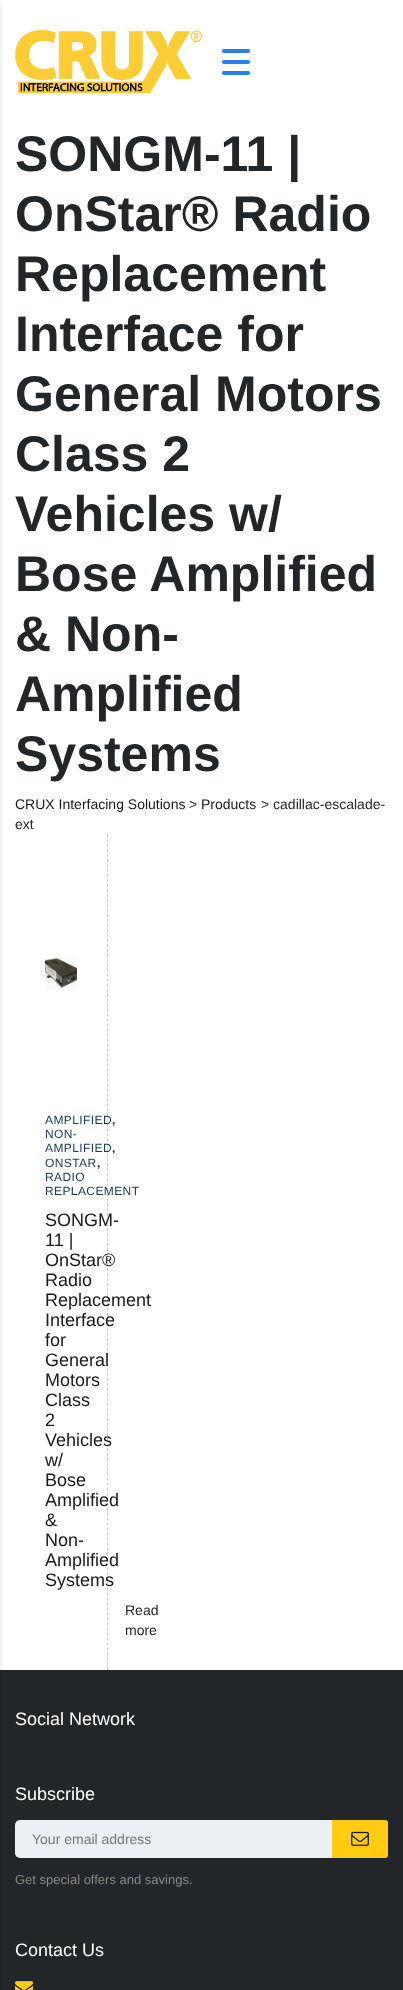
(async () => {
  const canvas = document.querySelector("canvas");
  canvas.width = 403;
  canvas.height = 1990;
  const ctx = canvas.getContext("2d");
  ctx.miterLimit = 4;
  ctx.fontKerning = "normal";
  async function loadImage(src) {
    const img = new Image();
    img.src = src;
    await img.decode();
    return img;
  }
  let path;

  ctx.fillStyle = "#ffffff";
  ctx.fillRect(0, 0, 403, 1990);
  ctx.fillStyle = "#232628";
  ctx.fillRect(0, 1670, 403, 320);
  ctx.fillStyle = "rgba(0, 0, 0, 0.2)";
  ctx.filter = "blur(2.5px)";
  ctx.beginPath();
  ctx.rect(-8, 3, 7, 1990);
  ctx.fill();
  ctx.filter = "none";
  ctx.drawImage(await loadImage("img/1.png"), 15, 30, 187, 63);
  ctx.fillStyle = "#297ee8";
  ctx.beginPath();
  ctx.roundRect(222, 49, 28, 4, 2);
  ctx.fill();
  ctx.beginPath();
  ctx.roundRect(222, 60, 28, 4, 2);
  ctx.fill();
  ctx.beginPath();
  ctx.roundRect(222, 71, 28, 4, 2);
  ctx.fill();
  path = new Path2D("M107.5 834V1670");
  ctx.strokeStyle = "#cccccc";
  ctx.setLineDash([3, 1.99]);
  ctx.stroke(path);
  ctx.drawImage(await loadImage("img/2.png"), 45, 957, 32, 32);
  ctx.fillStyle = "#eceff3";
  ctx.beginPath();
  ctx.roundRect(15, 1820, 317, 38, [5, 0, 0, 5]);
  ctx.fill();
  ctx.fillStyle = "#ffcc12";
  ctx.beginPath();
  ctx.roundRect(332, 1820, 56, 38, [0, 3, 3, 0]);
  ctx.fill();
  ctx.drawImage(await loadImage("img/3.png"), 351, 1831, 18, 15);
  ctx.drawImage(await loadImage("img/4.png"), 15, 1981, 18, 9);
  ctx.font = "bold 50px Liberation Sans";
  ctx.fillStyle = "#232628";
  for (const [text, x, y] of [
    ["SONGM-11 |", 15, 171],
    ["OnStar® Radio", 15, 231],
    ["Replacement", 15, 291],
    ["Interface for", 15, 351],
    ["General Motors", 15, 411],
    ["Class 2", 15, 471],
    ["Vehicles w/", 15, 531],
    ["Bose Amplified", 15, 591],
    ["& Non-", 15, 651],
    ["Amplified", 15, 711],
    ["Systems", 15, 771],
  ]) {
    ctx.fillText(text, x, y);
  }
  ctx.font = "14px Liberation Sans";
  ctx.fillStyle = "#191919";
  ctx.fillText("CRUX Interfacing Solutions", 15, 809);
  ctx.fillStyle = "#232628";
  ctx.fillText(">", 189, 809);
  ctx.fillStyle = "#191919";
  ctx.fillText("Products", 201, 809);
  ctx.fillStyle = "#232628";
  ctx.fillText("> cadillac-escalade-", 261, 809);
  ctx.fillText("ext", 15, 829);
  ctx.letterSpacing = "0.4px";
  ctx.font = "12px Liberation Sans";
  ctx.fillStyle = "#153e4d";
  ctx.fillText("AMPLIFIED", 45, 1124);
  ctx.letterSpacing = "0px";
  ctx.font = "bold 12px Liberation Sans";
  ctx.fillStyle = "#232628";
  ctx.fillText(",", 112, 1124);
  ctx.letterSpacing = "0.4px";
  ctx.font = "12px Liberation Sans";
  ctx.fillStyle = "#153e4d";
  ctx.fillText("NON-", 45, 1138);
  ctx.fillText("AMPLIFIED", 45, 1152);
  ctx.letterSpacing = "0px";
  ctx.font = "bold 12px Liberation Sans";
  ctx.fillStyle = "#232628";
  ctx.fillText(",", 112, 1152);
  ctx.letterSpacing = "0.4px";
  ctx.font = "12px Liberation Sans";
  ctx.fillStyle = "#153e4d";
  ctx.fillText("ONSTAR", 45, 1167);
  ctx.letterSpacing = "0px";
  ctx.font = "bold 12px Liberation Sans";
  ctx.fillStyle = "#232628";
  ctx.fillText(",", 97, 1167);
  ctx.letterSpacing = "0.4px";
  ctx.font = "12px Liberation Sans";
  ctx.fillStyle = "#153e4d";
  ctx.fillText("RADIO", 45, 1181);
  ctx.fillText("REPLACEMENT", 45, 1195);
  ctx.letterSpacing = "0px";
  ctx.font = "18px Liberation Sans";
  ctx.fillStyle = "#191919";
  for (const [text, x, y] of [
    ["SONGM-", 45, 1226],
    ["11 |", 45, 1246],
    ["OnStar®", 45, 1266],
    ["Radio", 45, 1286],
    ["Replacement", 45, 1306],
    ["Interface", 45, 1326],
    ["for", 45, 1346],
    ["General", 45, 1366],
    ["Motors", 45, 1386],
    ["Class", 45, 1406],
    ["2", 45, 1426],
    ["Vehicles", 45, 1446],
    ["w/", 45, 1466],
    ["Bose", 45, 1486],
    ["Amplified", 45, 1506],
    ["&", 45, 1526],
    ["Non-", 45, 1546],
    ["Amplified", 45, 1566],
    ["Systems", 45, 1586],
  ]) {
    ctx.fillText(text, x, y);
  }
  ctx.font = "14px Liberation Sans";
  ctx.fillStyle = "#232628";
  ctx.fillText("Read", 125, 1615);
  ctx.fillText("more", 125, 1635);
  ctx.font = "18px Liberation Sans";
  ctx.fillStyle = "#ffffff";
  ctx.fillText("Social Network", 15, 1725);
  ctx.fillText("Subscribe", 15, 1800);
  ctx.font = "14px Liberation Sans";
  ctx.fillStyle = "#757575";
  ctx.fillText("Your email address", 32, 1844);
  ctx.font = "13px Liberation Sans";
  ctx.fillStyle = "#888888";
  ctx.fillText("Get special offers and savings.", 15, 1884);
  ctx.font = "18px Liberation Sans";
  ctx.fillStyle = "#ffffff";
  ctx.fillText("Contact Us", 15, 1956);
})();
